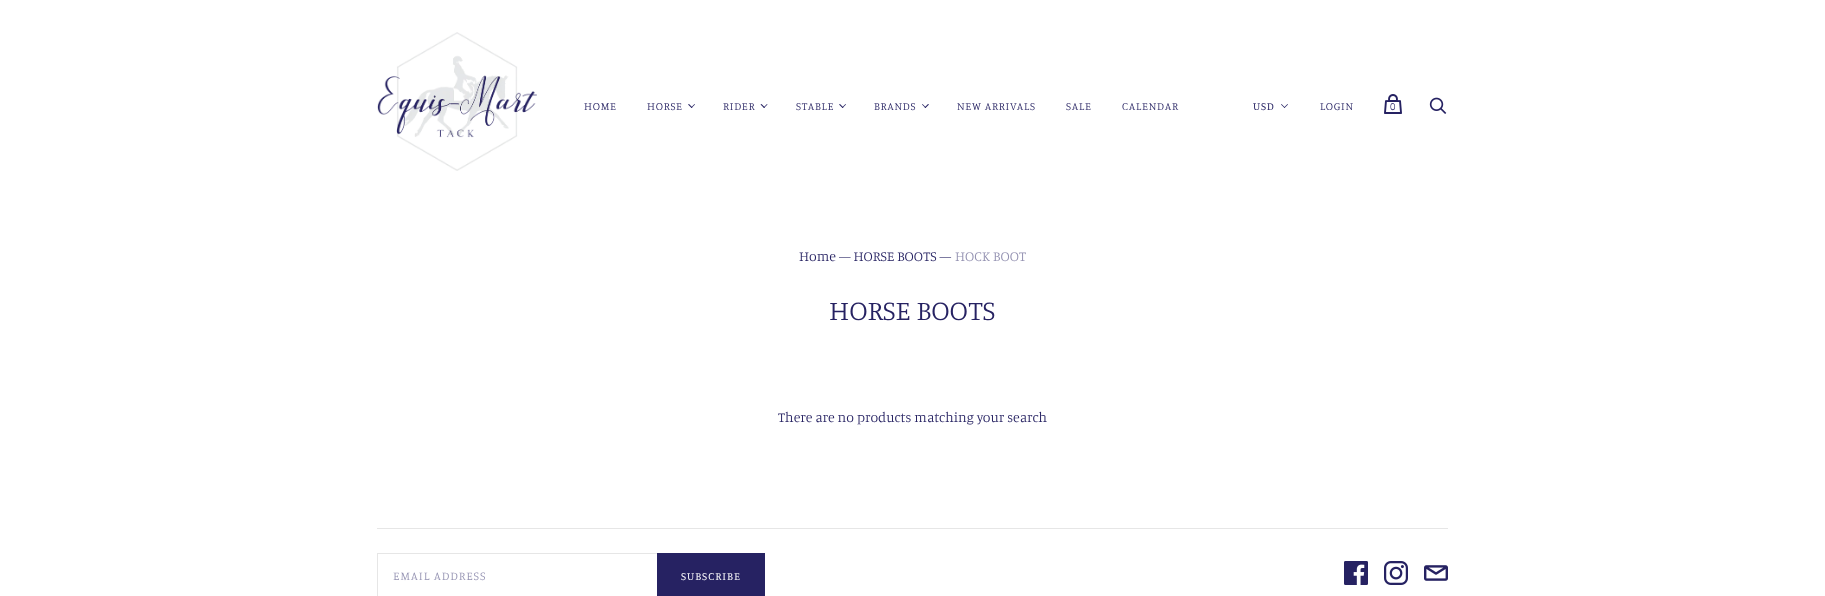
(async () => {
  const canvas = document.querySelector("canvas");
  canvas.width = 1825;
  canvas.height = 596;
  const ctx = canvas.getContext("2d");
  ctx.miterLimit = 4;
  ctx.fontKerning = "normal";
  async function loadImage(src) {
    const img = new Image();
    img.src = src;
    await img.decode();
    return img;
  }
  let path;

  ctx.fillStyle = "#ffffff";
  ctx.fillRect(0, 0, 1825, 596);
  ctx.drawImage(await loadImage("img/1.png"), 377, 32, 160, 139);
  ctx.fillStyle = "#262262";
  path = new Path2D("M691 107.5L694.5 104L695 104.5L691.5 108Z");
  ctx.fill(path);
  path = new Path2D("M688 104.5L689 104L692.5 107.5L691.5 108Z");
  ctx.fill(path);
  path = new Path2D("M763.5 107.5L767 104L767.5 104.5L764 108Z");
  ctx.fill(path);
  path = new Path2D("M760.5 104.5L761.5 104L765 107.5L764 108Z");
  ctx.fill(path);
  path = new Path2D("M842 107.5L845.5 104L846 104.5L842.5 108Z");
  ctx.fill(path);
  path = new Path2D("M839 104.5L840 104L843.5 107.5L842.5 108Z");
  ctx.fill(path);
  path = new Path2D("M924.5 107.5L928 104L929 104.5L925.5 108Z");
  ctx.fill(path);
  path = new Path2D("M922 104.5L922.5 104L926 107.5L925.5 108Z");
  ctx.fill(path);
  path = new Path2D("M1284 107.5L1287.5 104L1288 104.5L1284.5 108Z");
  ctx.fill(path);
  path = new Path2D("M1281 104.5L1281.5 104L1285 107.5L1284.5 108Z");
  ctx.fill(path);
  ctx.drawImage(await loadImage("img/2.png"), 1384, 94, 18, 20);
  ctx.drawImage(await loadImage("img/3.png"), 1429, 97, 18, 17);
  for (const [x, y, w, h, color] of [
    [377, 528, 1071, 1, "#e6e6e6"],
    [377, 553, 280, 1, "#e6e6e6"],
    [377, 553, 1, 43, "#e6e6e6"],
    [657, 553, 108, 43, "#262262"],
  ]) {
    ctx.fillStyle = color;
    ctx.fillRect(x, y, w, h);
  }
  ctx.drawImage(await loadImage("img/4.png"), 1344, 561, 24, 24);
  ctx.drawImage(await loadImage("img/5.png"), 1384, 561, 24, 24);
  ctx.drawImage(await loadImage("img/6.png"), 1424, 565, 24, 16);
  ctx.letterSpacing = "0.75px";
  ctx.font = "300 11px Manuale";
  for (const [text, x, y] of [
    ["HOME", 584, 110],
    ["HORSE", 647, 110],
    ["RIDER", 723, 110],
    ["STABLE", 796, 110],
    ["BRANDS", 874, 110],
    ["NEW ARRIVALS", 957, 110],
    ["SALE", 1066, 110],
    ["CALENDAR", 1122, 110],
  ]) {
    ctx.fillText(text, x, y);
  }
  ctx.font = "11px Manuale";
  ctx.fillText("USD", 1253, 110);
  ctx.font = "300 11px Manuale";
  ctx.fillText("LOGIN", 1320, 110);
  ctx.letterSpacing = "0px";
  ctx.fillText("0", 1390, 110);
  ctx.font = "300 14px Manuale";
  ctx.fillText("Home — HORSE BOOTS —", 799, 261);
  ctx.fillStyle = "#9391b1";
  ctx.fillText("HOCK BOOT", 955, 261);
  ctx.font = "300 28px Manuale";
  ctx.fillStyle = "#262262";
  ctx.fillText("HORSE BOOTS", 829, 320);
  ctx.font = "300 14px Manuale";
  ctx.fillText("There are no products matching your search", 778, 422);
  ctx.letterSpacing = "0.9px";
  ctx.font = "300 12px Manuale";
  ctx.fillStyle = "#9391b1";
  ctx.fillText("EMAIL ADDRESS", 393, 580);
  ctx.letterSpacing = "1px";
  ctx.font = "11px Manuale";
  ctx.fillStyle = "#ffffff";
  ctx.fillText("SUBSCRIBE", 681, 580);
})();
